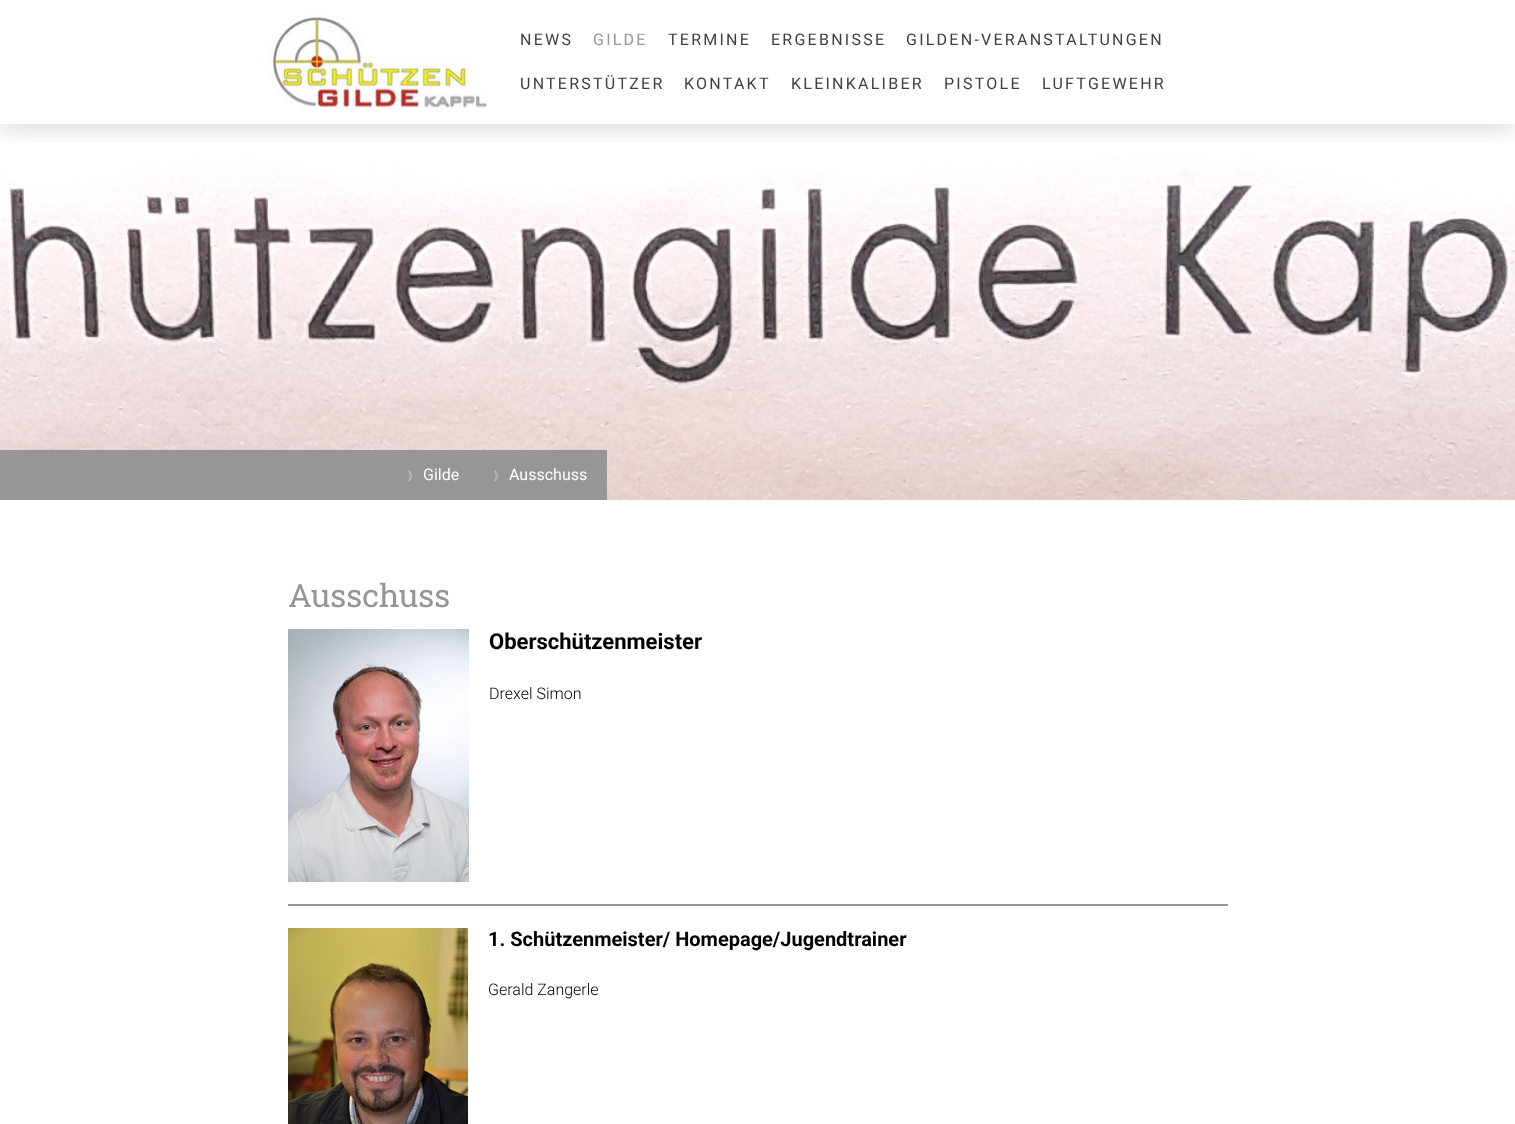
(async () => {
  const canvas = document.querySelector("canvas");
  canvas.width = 1515;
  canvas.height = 1124;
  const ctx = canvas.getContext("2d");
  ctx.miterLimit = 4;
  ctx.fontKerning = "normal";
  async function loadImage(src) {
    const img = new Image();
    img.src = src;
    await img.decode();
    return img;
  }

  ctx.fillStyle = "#ffffff";
  ctx.fillRect(0, 0, 1515, 1124);
  ctx.drawImage(await loadImage("img/2.png"), 0, 157, 1515, 343);
  ctx.save();
  ctx.beginPath();
  ctx.rect(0, 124, 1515, 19);
  ctx.clip();
  ctx.fillStyle = "rgba(0, 0, 0, 0.2)";
  ctx.filter = "blur(15px)";
  ctx.beginPath();
  ctx.rect(0, 0, 1515, 124);
  ctx.fill();
  ctx.filter = "none";
  ctx.restore();
  ctx.drawImage(await loadImage("img/1.png"), 268, 15, 220, 94);
  ctx.fillStyle = "#969696";
  ctx.fillRect(0, 450, 607, 50);
  ctx.drawImage(await loadImage("img/3.png"), 288, 629, 181, 253);
  ctx.fillRect(288, 904, 940, 2);
  ctx.drawImage(await loadImage("img/4.png"), 288, 928, 180, 196);
  ctx.letterSpacing = "2.25px";
  ctx.font = "16px Roboto";
  ctx.fillStyle = "#404040";
  ctx.fillText("NEWS", 520, 45);
  ctx.fillStyle = "#969696";
  ctx.fillText("GILDE", 593, 45);
  ctx.fillStyle = "#404040";
  for (const [text, x, y] of [
    ["TERMINE", 668, 45],
    ["ERGEBNISSE", 771, 45],
    ["GILDEN-VERANSTALTUNGEN", 906, 45],
    ["UNTERSTÜTZER", 520, 89],
    ["KONTAKT", 684, 89],
    ["KLEINKALIBER", 791, 89],
    ["PISTOLE", 944, 89],
    ["LUFTGEWEHR", 1042, 89],
  ]) {
    ctx.fillText(text, x, y);
  }
  ctx.letterSpacing = "0px";
  ctx.font = "13px FreeSerif";
  ctx.fillStyle = "#cbcbcb";
  ctx.fillText("⦆", 408, 479);
  ctx.font = "16px Roboto";
  ctx.fillStyle = "#ffffff";
  ctx.fillText("Gilde", 423, 480);
  ctx.font = "13px FreeSerif";
  ctx.fillStyle = "#cbcbcb";
  ctx.fillText("⦆", 494, 479);
  ctx.font = "16px Roboto";
  ctx.fillStyle = "#ffffff";
  ctx.fillText("Ausschuss", 509, 480);
  ctx.font = "32px Roboto Slab";
  ctx.fillStyle = "#969696";
  ctx.fillText("Ausschuss", 288, 607);
  ctx.font = "bold 22px Roboto";
  ctx.fillStyle = "#000000";
  ctx.fillText("Oberschützenmeister", 489, 649);
  ctx.font = "300 16px Roboto";
  ctx.fillText("Drexel Simon", 489, 699);
  ctx.font = "bold 20px Roboto";
  ctx.fillText("1. Schützenmeister/ Homepage/Jugendtrainer", 488, 946);
  ctx.font = "300 16px Roboto";
  ctx.fillText("Gerald Zangerle", 488, 995);
})();
